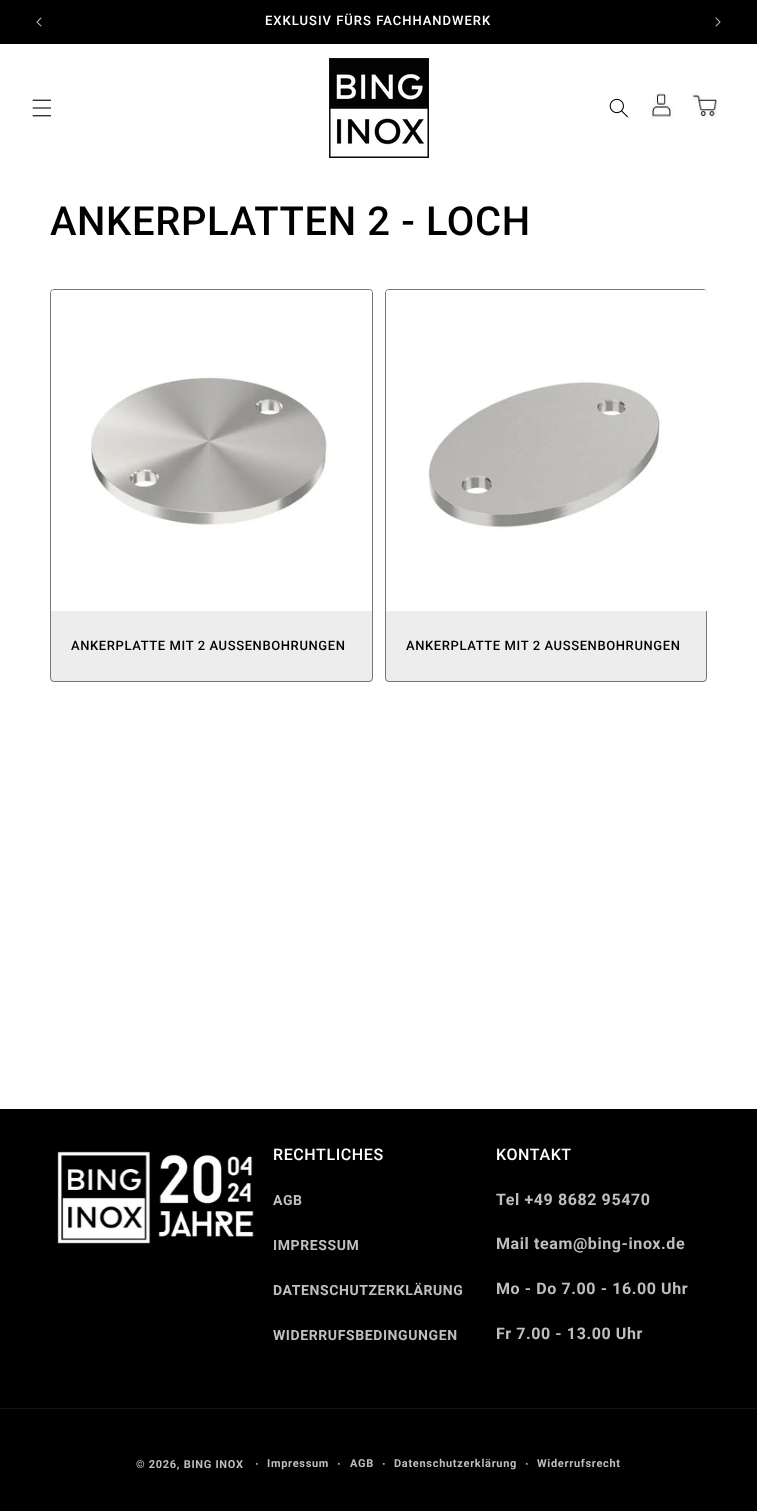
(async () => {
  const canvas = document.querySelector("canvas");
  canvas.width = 757;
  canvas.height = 1511;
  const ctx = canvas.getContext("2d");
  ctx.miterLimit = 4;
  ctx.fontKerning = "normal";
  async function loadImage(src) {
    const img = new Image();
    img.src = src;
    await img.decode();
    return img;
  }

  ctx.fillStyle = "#ffffff";
  ctx.fillRect(0, 0, 757, 1511);
  ctx.fillStyle = "#000000";
  ctx.fillRect(0, 0, 757, 44);
  ctx.drawImage(await loadImage("img/1.png"), 36, 17, 6, 10);
  ctx.drawImage(await loadImage("img/2.png"), 715, 17, 6, 10);
  ctx.drawImage(await loadImage("img/3.png"), 32, 99, 20, 18);
  ctx.drawImage(await loadImage("img/4.png"), 329, 58, 100, 100);
  ctx.drawImage(await loadImage("img/5.png"), 609, 98, 19, 20);
  ctx.drawImage(await loadImage("img/6.png"), 650, 93, 24, 26);
  ctx.drawImage(await loadImage("img/7.png"), 691, 92, 27, 27);
  ctx.fillStyle = "#ededed";
  ctx.beginPath();
  ctx.roundRect(50, 289, 323, 393, 4);
  ctx.fill();
  ctx.beginPath();
  ctx.roundRect(50.5, 289.5, 322, 392, 3.5);
  ctx.strokeStyle = "rgba(0, 0, 0, 0.5)";
  ctx.stroke();
  ctx.drawImage(await loadImage("img/8.png"), 51, 290, 321, 321);
  ctx.beginPath();
  ctx.roundRect(385, 289, 322, 393, 4);
  ctx.fill();
  ctx.beginPath();
  ctx.roundRect(385.5, 289.5, 321, 392, 3.5);
  ctx.stroke();
  ctx.drawImage(await loadImage("img/9.png"), 386, 290, 321, 321);
  ctx.fillStyle = "#000000";
  ctx.fillRect(0, 1109, 757, 402);
  ctx.drawImage(await loadImage("img/10.png"), 57, 1151, 197, 93);
  ctx.fillStyle = "#141414";
  ctx.fillRect(0, 1408, 757, 1);
  ctx.letterSpacing = "1px";
  ctx.font = "500 13px Roboto";
  ctx.fillStyle = "#ffffff";
  ctx.fillText("EXKLUSIV FÜRS FACHHANDWERK", 265, 25);
  ctx.letterSpacing = "0.6px";
  ctx.font = "500 40px Roboto";
  ctx.fillStyle = "#000000";
  ctx.fillText("ANKERPLATTEN 2 - LOCH", 50, 235);
  ctx.font = "500 13px Roboto";
  ctx.fillText("ANKERPLATTE MIT 2 AUSSENBOHRUNGEN", 71, 650);
  ctx.fillText("ANKERPLATTE MIT 2 AUSSENBOHRUNGEN", 406, 650);
  ctx.font = "500 16px Roboto";
  ctx.fillStyle = "#ffffff";
  ctx.fillText("RECHTLICHES", 273, 1160);
  ctx.font = "bold 14px Roboto";
  ctx.fillStyle = "#bfbfbf";
  for (const [text, x, y] of [
    ["AGB", 273, 1205],
    ["IMPRESSUM", 273, 1250],
    ["DATENSCHUTZERKLÄRUNG", 273, 1295],
    ["WIDERRUFSBEDINGUNGEN", 273, 1340],
  ]) {
    ctx.fillText(text, x, y);
  }
  ctx.font = "500 16px Roboto";
  ctx.fillStyle = "#ffffff";
  ctx.fillText("KONTAKT", 496, 1160);
  ctx.font = "bold 16px Roboto";
  ctx.fillStyle = "#bfbfbf";
  for (const [text, x, y] of [
    ["Tel +49 8682 95470", 496, 1205],
    ["Mail team@bing-inox.de", 496, 1249],
    ["Mo - Do 7.00 - 16.00 Uhr", 496, 1294],
    ["Fr 7.00 - 13.00 Uhr", 496, 1339],
  ]) {
    ctx.fillText(text, x, y);
  }
  ctx.letterSpacing = "0.7px";
  ctx.font = "bold 11px Roboto";
  ctx.fillText("© 2026, BING INOX", 136, 1468);
  ctx.font = "bold 12px Roboto";
  ctx.fillText("·", 255, 1468);
  ctx.font = "bold 11px Roboto";
  ctx.fillText("Impressum", 267, 1467);
  ctx.font = "bold 12px Roboto";
  ctx.fillText("·", 337, 1468);
  ctx.font = "bold 11px Roboto";
  ctx.fillText("AGB", 350, 1467);
  ctx.font = "bold 12px Roboto";
  ctx.fillText("·", 382, 1468);
  ctx.font = "bold 11px Roboto";
  ctx.fillText("Datenschutzerklärung", 394, 1467);
  ctx.font = "bold 12px Roboto";
  ctx.fillText("·", 525, 1468);
  ctx.font = "bold 11px Roboto";
  ctx.fillText("Widerrufsrecht", 537, 1467);
})();
